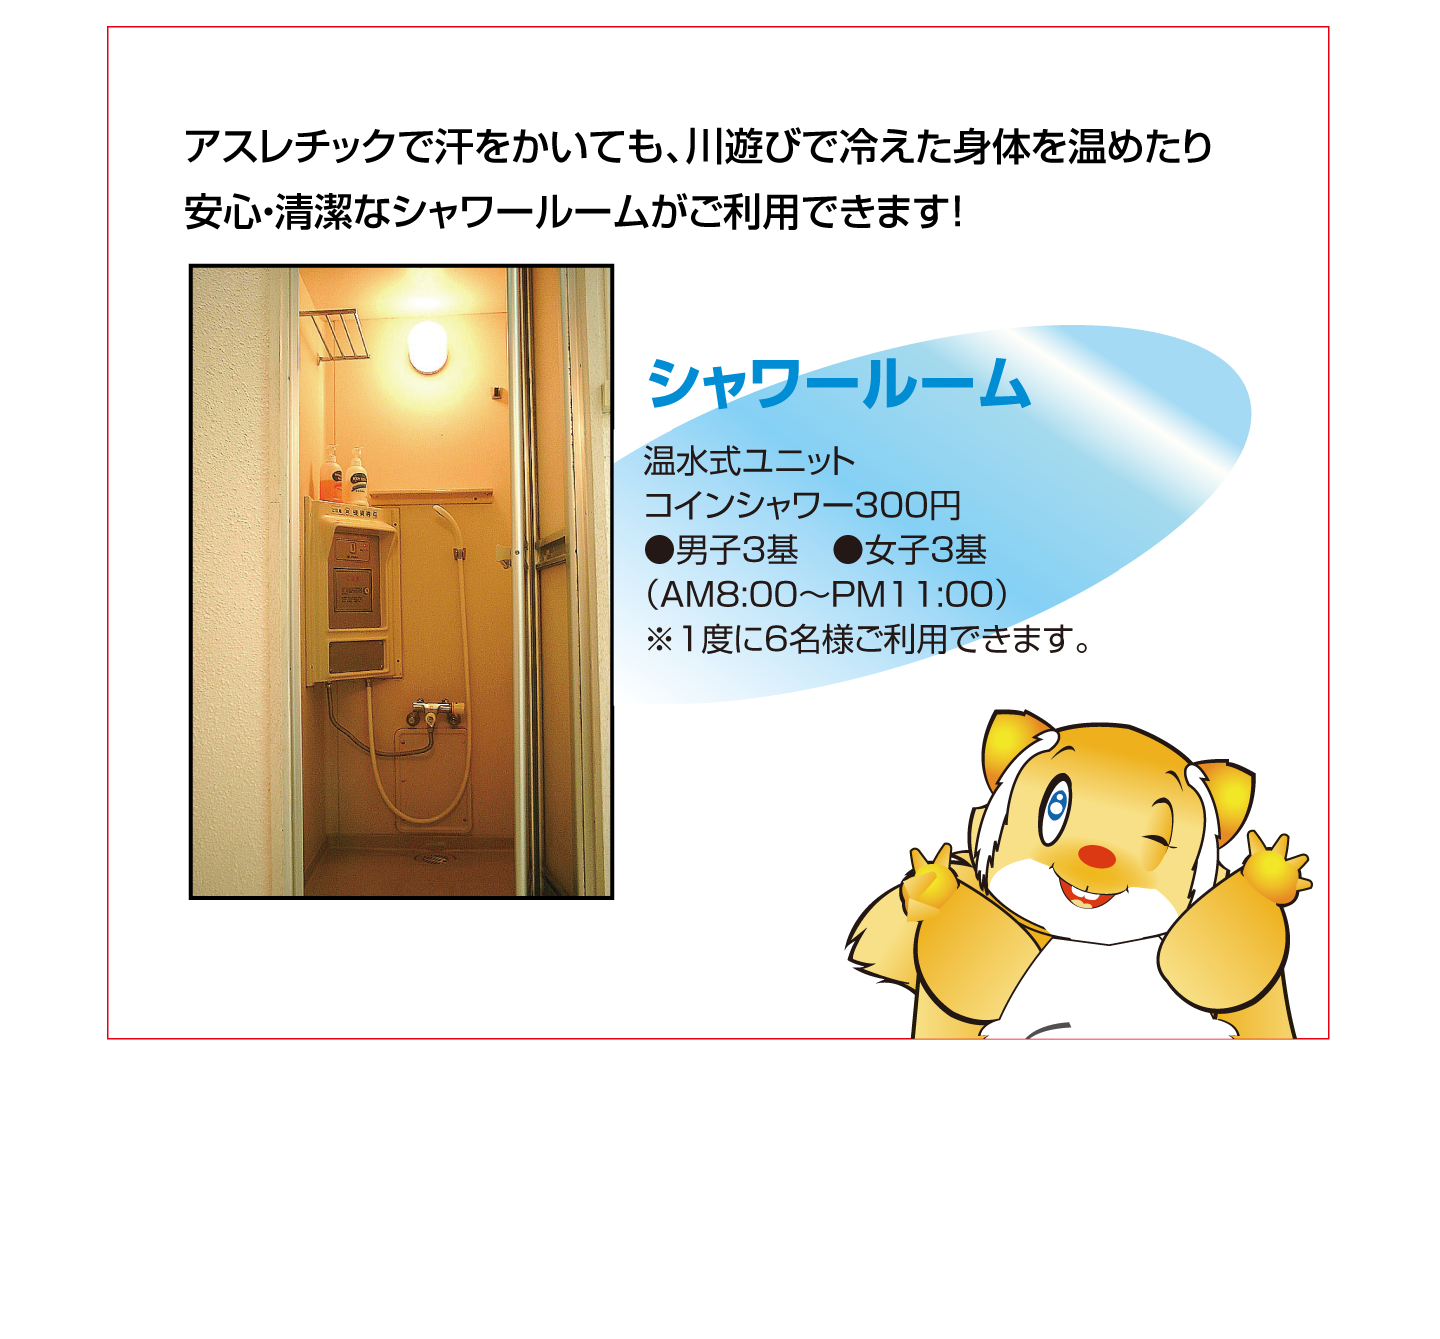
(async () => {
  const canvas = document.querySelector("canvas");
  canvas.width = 1440;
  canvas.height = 1339;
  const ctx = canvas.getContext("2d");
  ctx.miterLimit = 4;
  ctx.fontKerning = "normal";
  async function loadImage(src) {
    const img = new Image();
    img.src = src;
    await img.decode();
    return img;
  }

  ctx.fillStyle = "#ffffff";
  ctx.fillRect(0, 0, 1440, 1339);
  ctx.drawImage(await loadImage("img/1.png"), 107, 26, 1223, 1014);
})();
